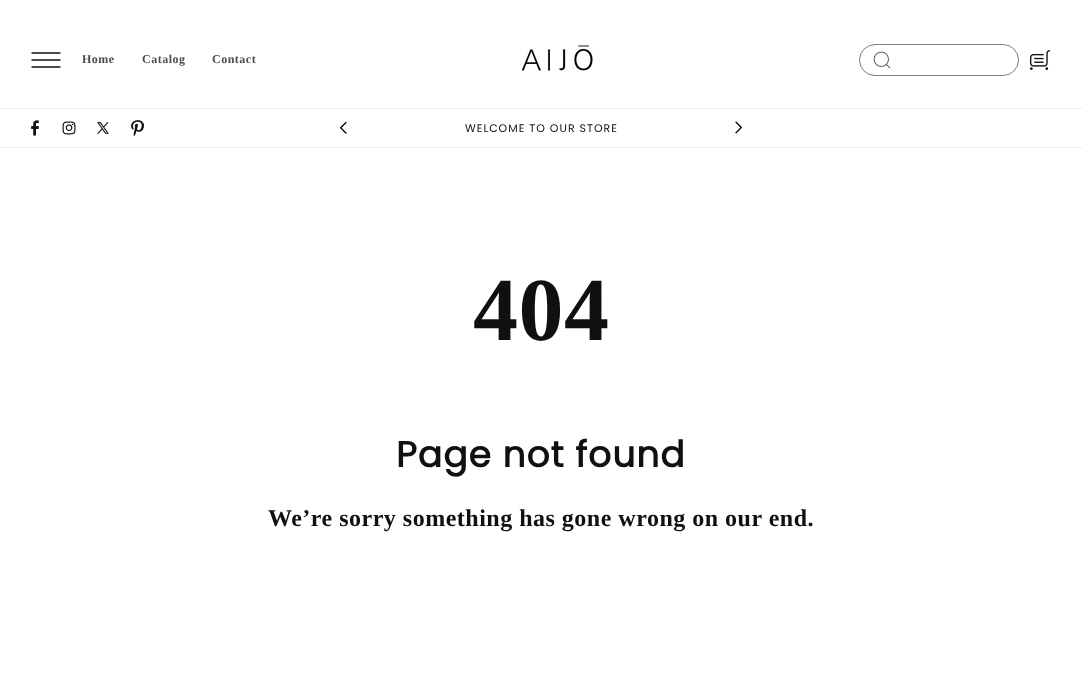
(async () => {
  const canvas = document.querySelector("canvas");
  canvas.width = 1082;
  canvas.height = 688;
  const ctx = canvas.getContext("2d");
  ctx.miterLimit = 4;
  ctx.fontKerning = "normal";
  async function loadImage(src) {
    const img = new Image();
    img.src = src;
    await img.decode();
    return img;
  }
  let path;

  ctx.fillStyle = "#ffffff";
  ctx.fillRect(0, 0, 1082, 688);
  ctx.fillStyle = "#ececec";
  ctx.fillRect(0, 108, 1082, 1);
  path = new Path2D("M32 53H60M32 60H60M32 67H60");
  ctx.strokeStyle = "#101010";
  ctx.lineWidth = 1.4;
  ctx.lineCap = "round";
  ctx.lineJoin = "round";
  ctx.stroke(path);
  ctx.drawImage(await loadImage("img/1.png"), 521, 45, 72, 26);
  ctx.drawImage(await loadImage("img/2.png"), 873, 51, 18, 18);
  ctx.beginPath();
  ctx.roundRect(859.5, 44.5, 159, 31, 15.5);
  ctx.strokeStyle = "#7c7c7c";
  ctx.lineWidth = 1;
  ctx.lineJoin = "miter";
  ctx.stroke();
  ctx.drawImage(await loadImage("img/3.png"), 1030, 50, 20, 20);
  ctx.fillRect(0, 147, 1082, 1);
  ctx.drawImage(await loadImage("img/4.png"), 31, 120, 8, 16);
  ctx.drawImage(await loadImage("img/5.png"), 62, 121, 14, 14);
  ctx.drawImage(await loadImage("img/6.png"), 97, 122, 12, 12);
  ctx.drawImage(await loadImage("img/7.png"), 131, 120, 13, 16);
  ctx.drawImage(await loadImage("img/8.png"), 340, 121, 7, 13);
  ctx.drawImage(await loadImage("img/9.png"), 735, 121, 7, 13);
  ctx.letterSpacing = "0.5px";
  ctx.font = "bold 12px Liberation Serif";
  ctx.fillStyle = "#4c4c4c";
  for (const [text, x, y] of [
    ["Home", 82, 63],
    ["Catalog", 142, 63],
    ["Contact", 212, 63],
  ]) {
    ctx.fillText(text, x, y);
  }
  ctx.letterSpacing = "1px";
  ctx.font = "11px Poppins";
  ctx.fillStyle = "#101010";
  ctx.fillText("WELCOME TO OUR STORE", 465, 132);
  ctx.letterSpacing = "0.5px";
  ctx.font = "bold 90px Liberation Serif";
  ctx.fillText("404", 473, 340);
  ctx.letterSpacing = "1px";
  ctx.font = "bold 36px Poppins";
  ctx.fillText("Page not found", 396, 467);
  ctx.letterSpacing = "0.5px";
  ctx.font = "bold 24px Liberation Serif";
  ctx.fillText("We’re sorry something has gone wrong on our end.", 268, 526);
})();
